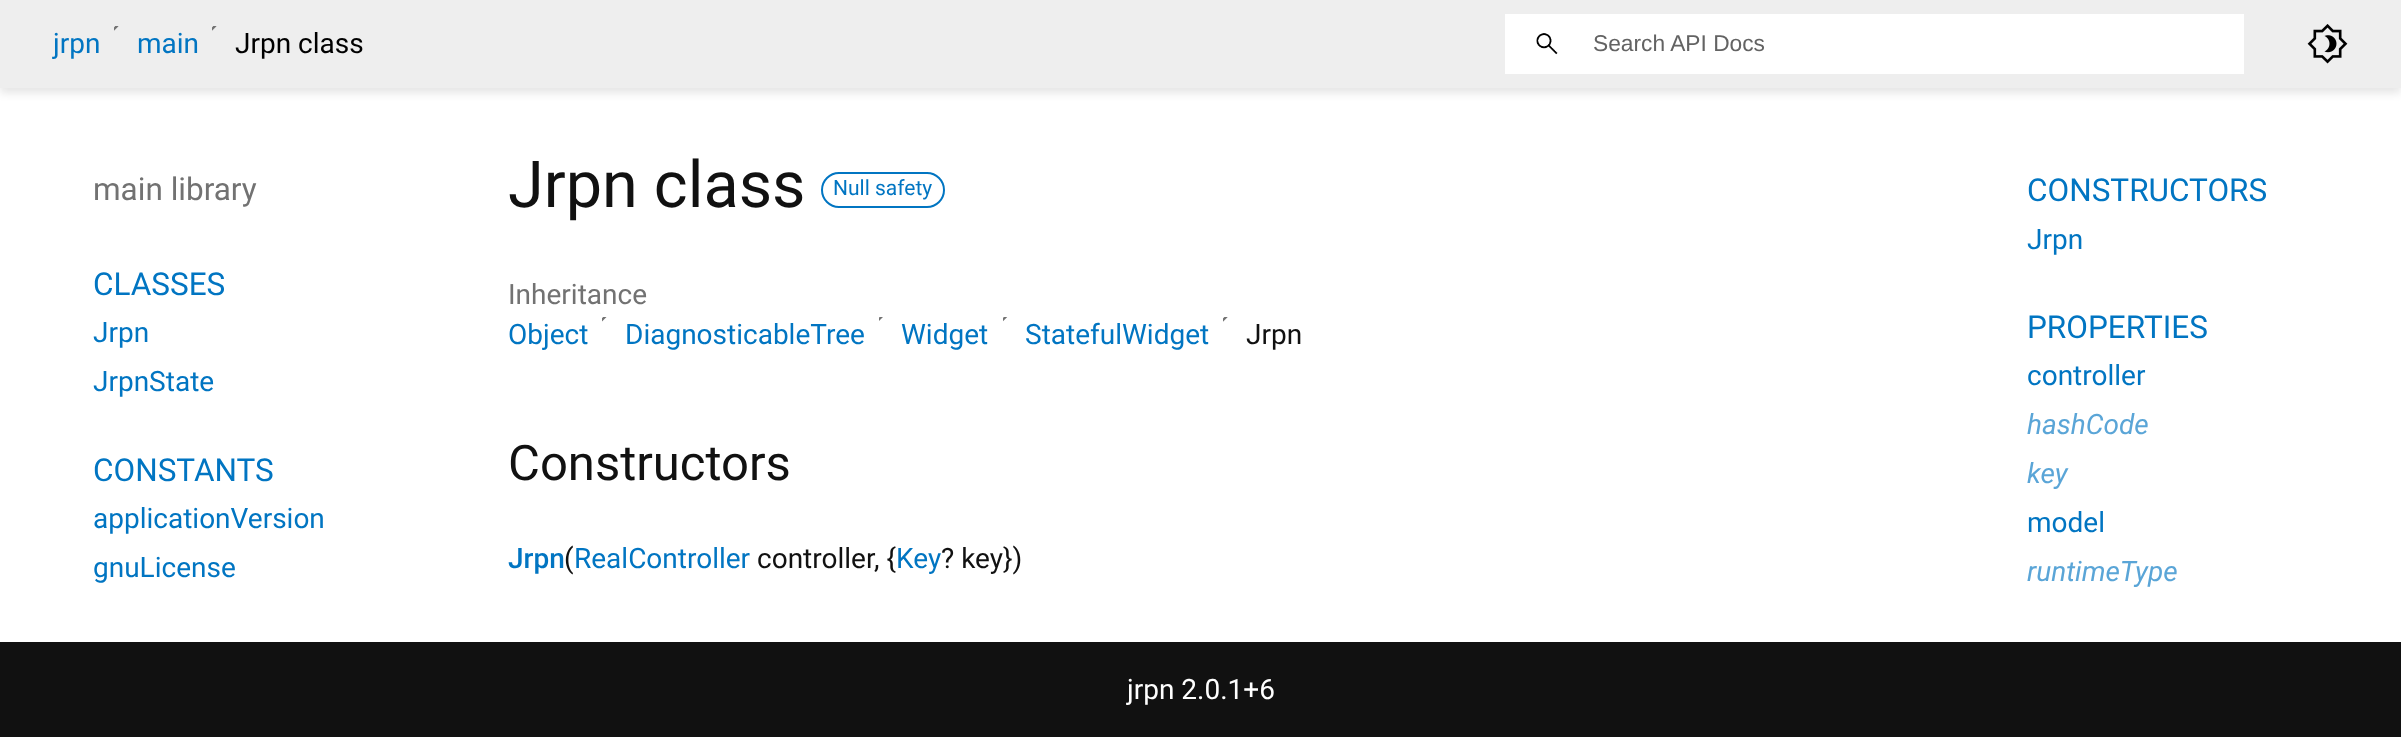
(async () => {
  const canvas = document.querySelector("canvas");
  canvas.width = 2401;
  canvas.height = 737;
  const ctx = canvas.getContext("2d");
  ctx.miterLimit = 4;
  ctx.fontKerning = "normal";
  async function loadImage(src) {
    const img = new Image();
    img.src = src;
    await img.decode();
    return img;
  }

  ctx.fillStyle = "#ffffff";
  ctx.fillRect(0, 0, 2401, 737);
  ctx.fillStyle = "rgba(0, 0, 0, 0.1)";
  ctx.filter = "blur(4.5px)";
  ctx.beginPath();
  ctx.rect(0, 5, 2401, 88);
  ctx.fill();
  ctx.filter = "none";
  ctx.fillStyle = "#eeeeee";
  ctx.fillRect(0, 0, 2401, 88);
  ctx.drawImage(await loadImage("img/1.png"), 114, 26, 5, 5);
  ctx.drawImage(await loadImage("img/1.png"), 212, 26, 5, 5);
  ctx.fillStyle = "#ffffff";
  ctx.fillRect(1505, 14, 739, 60);
  ctx.drawImage(await loadImage("img/2.png"), 1536, 33, 22, 22);
  ctx.drawImage(await loadImage("img/3.png"), 2307, 24, 41, 40);
  ctx.beginPath();
  ctx.roundRect(822, 173, 122, 34, 17);
  ctx.strokeStyle = "#0175c2";
  ctx.lineWidth = 2;
  ctx.stroke();
  ctx.drawImage(await loadImage("img/4.png"), 602, 317, 5, 5);
  ctx.drawImage(await loadImage("img/5.png"), 879, 317, 4, 4);
  ctx.drawImage(await loadImage("img/6.png"), 1003, 317, 5, 5);
  ctx.drawImage(await loadImage("img/7.png"), 1223, 317, 5, 5);
  ctx.fillStyle = "#111111";
  ctx.fillRect(0, 642, 2401, 95);
  ctx.font = "28px Roboto";
  ctx.fillStyle = "#0175c2";
  ctx.fillText("jrpn", 53, 53);
  ctx.fillText("main", 137, 53);
  ctx.fillStyle = "#000000";
  ctx.fillText("Jrpn class", 235, 53);
  ctx.font = "22.75px Liberation Sans";
  ctx.fillStyle = "#636363";
  ctx.fillText("Search API Docs", 1593, 51);
  ctx.font = "31.5px Roboto";
  ctx.fillStyle = "#727272";
  ctx.fillText("main library", 93, 200);
  ctx.fillStyle = "#0175c2";
  ctx.fillText("CLASSES", 93, 295);
  ctx.font = "28px Roboto";
  ctx.fillText("Jrpn", 93, 342);
  ctx.fillText("JrpnState", 93, 391);
  ctx.font = "31.5px Roboto";
  ctx.fillText("CONSTANTS", 93, 481);
  ctx.font = "28px Roboto";
  ctx.fillText("applicationVersion", 93, 528);
  ctx.fillText("gnuLicense", 93, 577);
  ctx.font = "64.75px Roboto";
  ctx.fillStyle = "#111111";
  ctx.fillText("Jrpn class", 508, 207);
  ctx.font = "21px Roboto";
  ctx.fillStyle = "#0175c2";
  ctx.fillText("Null safety", 833, 195);
  ctx.font = "28px Roboto";
  ctx.fillStyle = "#727272";
  ctx.fillText("Inheritance", 508, 304);
  ctx.fillStyle = "#0175c2";
  for (const [text, x, y] of [
    ["Object", 508, 344],
    ["DiagnosticableTree", 625, 344],
    ["Widget", 901, 344],
    ["StatefulWidget", 1025, 344],
  ]) {
    ctx.fillText(text, x, y);
  }
  ctx.fillStyle = "#111111";
  ctx.fillText("Jrpn", 1246, 344);
  ctx.font = "49px Roboto";
  ctx.fillText("Constructors", 508, 480);
  ctx.font = "500 28px Roboto";
  ctx.fillStyle = "#0175c2";
  ctx.fillText("Jrpn", 508, 568);
  ctx.font = "28px Roboto";
  ctx.fillStyle = "#111111";
  ctx.fillText("(", 564, 568);
  ctx.fillStyle = "#0175c2";
  ctx.fillText("RealController", 574, 568);
  ctx.fillStyle = "#111111";
  ctx.fillText("controller", 757, 568);
  ctx.fillText(", {", 874, 568);
  ctx.fillStyle = "#0175c2";
  ctx.fillText("Key", 896, 568);
  ctx.fillStyle = "#111111";
  ctx.fillText("? key})", 941, 568);
  ctx.font = "31.5px Roboto";
  ctx.fillStyle = "#0175c2";
  ctx.fillText("CONSTRUCTORS", 2027, 201);
  ctx.font = "28px Roboto";
  ctx.fillText("Jrpn", 2027, 249);
  ctx.font = "31.5px Roboto";
  ctx.fillText("PROPERTIES", 2027, 338);
  ctx.font = "28px Roboto";
  ctx.fillText("controller", 2027, 385);
  ctx.font = "italic 28px Roboto";
  ctx.fillStyle = "#5aa5d7";
  ctx.fillText("hashCode", 2027, 434);
  ctx.fillText("key", 2027, 483);
  ctx.font = "28px Roboto";
  ctx.fillStyle = "#0175c2";
  ctx.fillText("model", 2027, 532);
  ctx.font = "italic 28px Roboto";
  ctx.fillStyle = "#5aa5d7";
  ctx.fillText("runtimeType", 2027, 581);
  ctx.font = "28px Roboto";
  ctx.fillStyle = "#ffffff";
  ctx.fillText("jrpn 2.0.1+6", 1127, 699);
})();
